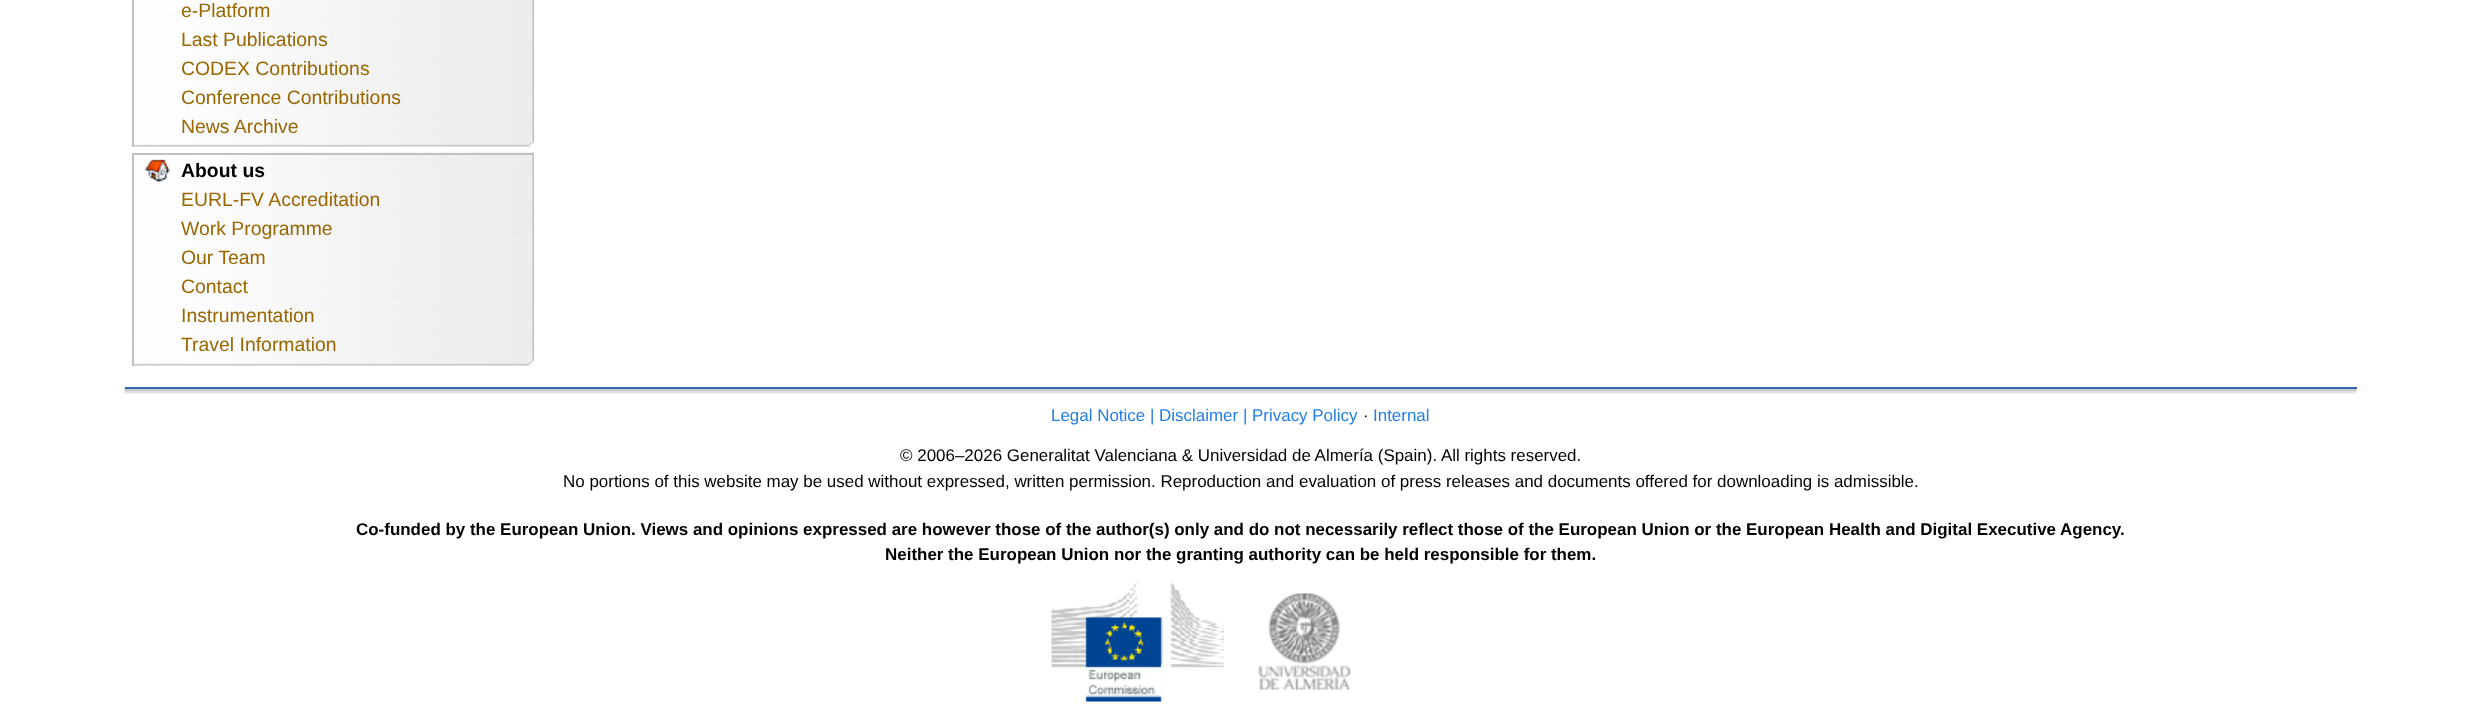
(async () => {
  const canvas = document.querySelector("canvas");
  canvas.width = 2480;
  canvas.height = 724;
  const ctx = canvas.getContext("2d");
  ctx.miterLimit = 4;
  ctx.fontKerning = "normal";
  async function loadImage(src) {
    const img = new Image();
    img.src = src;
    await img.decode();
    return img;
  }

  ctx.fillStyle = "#ffffff";
  ctx.fillRect(0, 0, 2480, 724);
  ctx.drawImage(await loadImage("img/1.png"), 134, 0, 400, 147);
  ctx.fillStyle = "#c0c0c0";
  ctx.fillRect(132, 0, 2, 147);
  ctx.drawImage(await loadImage("img/2.png"), 132, 152, 402, 214);
  ctx.fillRect(132, 153, 402, 2);
  ctx.fillRect(132, 153, 2, 213);
  ctx.drawImage(await loadImage("img/3.png"), 145, 159, 25, 24);
  ctx.drawImage(await loadImage("img/4.png"), 124, 388, 2233, 6);
  ctx.fillStyle = "#346bab";
  ctx.fillRect(125, 387, 2232, 2);
  ctx.drawImage(await loadImage("img/5.png"), 1051, 583, 173, 119);
  ctx.drawImage(await loadImage("img/6.png"), 1258, 593, 93, 97);
  ctx.font = "19.4px Liberation Sans";
  ctx.fillStyle = "#996600";
  for (const [text, x, y] of [
    ["e-Platform", 181, 17],
    ["Last Publications", 181, 46],
    ["CODEX Contributions", 181, 75],
    ["Conference Contributions", 181, 104],
    ["News Archive", 181, 133],
  ]) {
    ctx.fillText(text, x, y);
  }
  ctx.font = "bold 19.4px Liberation Sans";
  ctx.fillStyle = "#000000";
  ctx.fillText("About us", 181, 177);
  ctx.font = "19.4px Liberation Sans";
  ctx.fillStyle = "#996600";
  for (const [text, x, y] of [
    ["EURL-FV Accreditation", 181, 206],
    ["Work Programme", 181, 235],
    ["Our Team", 181, 264],
    ["Contact", 181, 293],
    ["Instrumentation", 181, 322],
    ["Travel Information", 181, 351],
  ]) {
    ctx.fillText(text, x, y);
  }
  ctx.font = "16.97px Liberation Sans";
  ctx.fillStyle = "#227ee9";
  ctx.fillText("Legal Notice | Disclaimer | Privacy Policy", 1051, 421);
  ctx.fillStyle = "#000000";
  ctx.fillText("·", 1363, 421);
  ctx.fillStyle = "#227ee9";
  ctx.fillText("Internal", 1373, 421);
  ctx.fillStyle = "#000000";
  ctx.fillText("© 2006–2026 Generalitat Valenciana & Universidad de Almería (Spain). All rights reserved.", 900, 461);
  ctx.fillText("No portions of this website may be used without expressed, written permission. Reproduction and evaluation of press releases and documents offered for downloading is admissible.", 563, 487);
  ctx.font = "bold 16.97px Liberation Sans";
  ctx.fillText("Co-funded by the European Union. Views and opinions expressed are however those of the author(s) only and do not necessarily reflect those of the European Union or the European Health and Digital Executive Agency.", 356, 535);
  ctx.fillText("Neither the European Union nor the granting authority can be held responsible for them.", 885, 560);
})();
